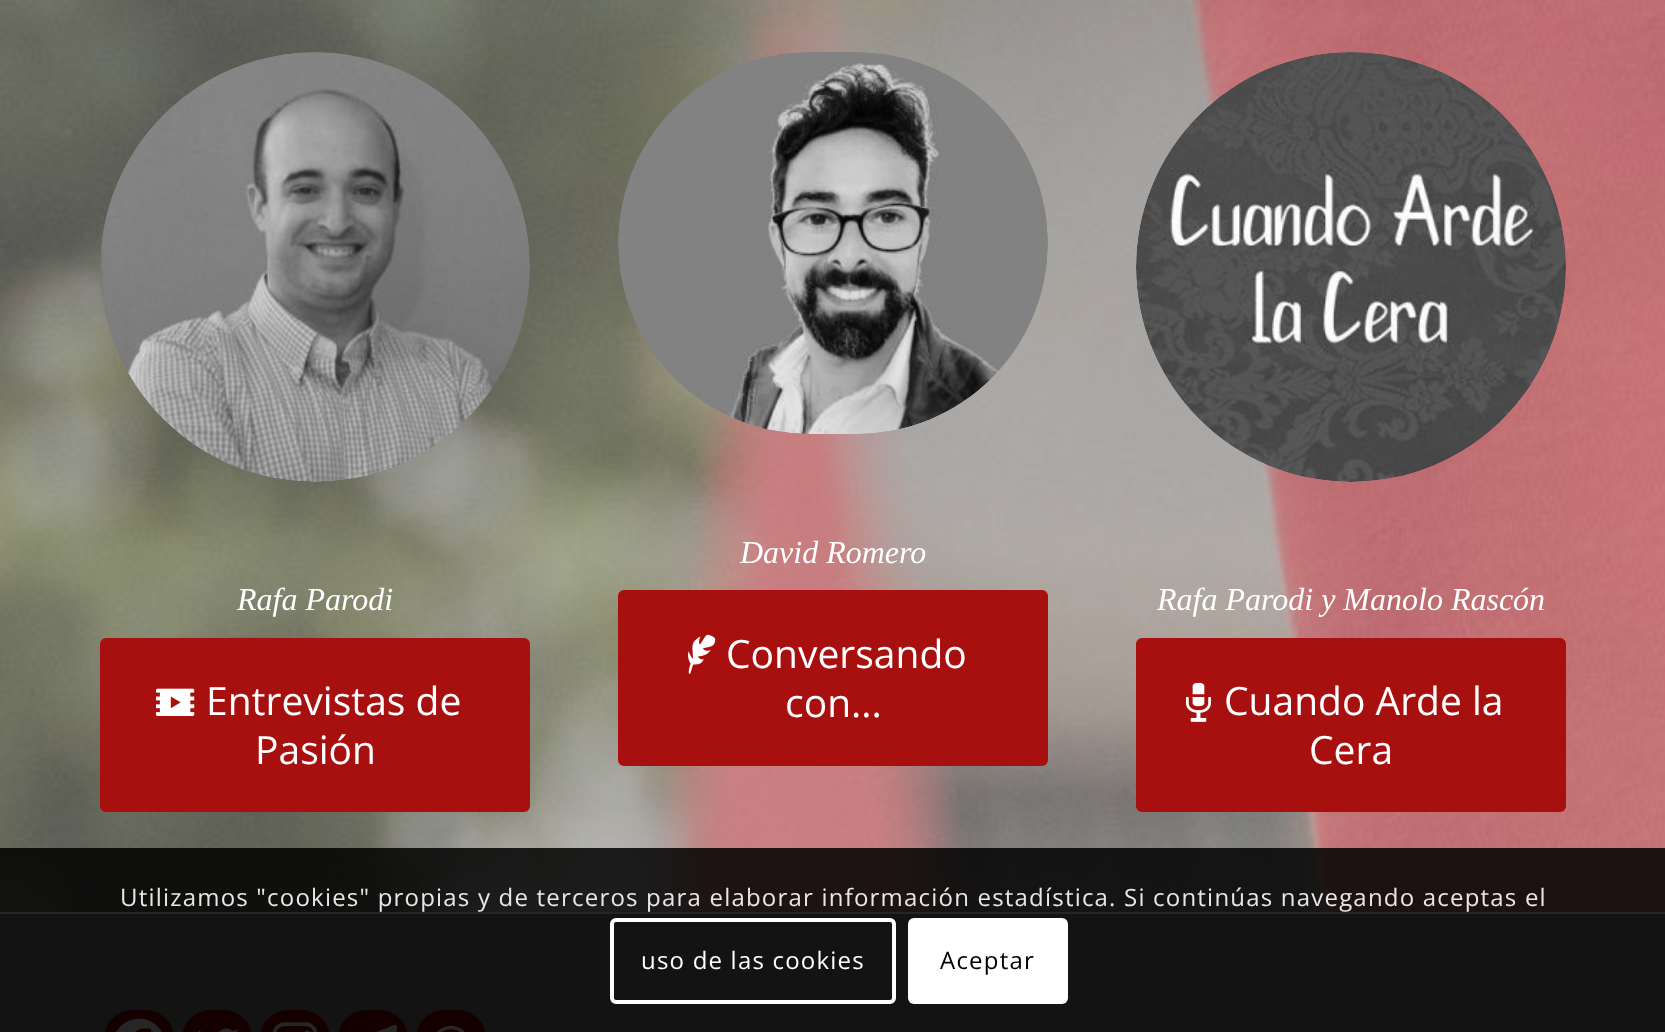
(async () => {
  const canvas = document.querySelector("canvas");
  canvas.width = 1665;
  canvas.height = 1032;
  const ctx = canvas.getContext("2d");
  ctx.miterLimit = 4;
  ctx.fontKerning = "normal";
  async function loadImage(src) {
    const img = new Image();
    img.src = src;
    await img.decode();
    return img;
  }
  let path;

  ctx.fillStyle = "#ffffff";
  ctx.fillRect(0, 0, 1665, 1032);
  ctx.drawImage(await loadImage("img/1.png"), 0, 0, 1665, 912);
  ctx.drawImage(await loadImage("img/2.png"), 100, 52, 430, 430);
  ctx.fillStyle = "#a81010";
  ctx.beginPath();
  ctx.roundRect(100, 638, 430, 174, 6);
  ctx.fill();
  ctx.drawImage(await loadImage("img/3.png"), 156, 688, 39, 28);
  ctx.drawImage(await loadImage("img/4.png"), 618, 52, 430, 382);
  ctx.beginPath();
  ctx.roundRect(618, 590, 430, 176, 6);
  ctx.fill();
  ctx.drawImage(await loadImage("img/5.png"), 688, 634, 28, 40);
  ctx.drawImage(await loadImage("img/6.png"), 1136, 52, 430, 430);
  ctx.beginPath();
  ctx.roundRect(1136, 638, 430, 174, 6);
  ctx.fill();
  ctx.drawImage(await loadImage("img/7.png"), 1186, 682, 25, 40);
  ctx.fillStyle = "#808080";
  ctx.fillRect(0, 914, 1665, 118);
  ctx.fillStyle = "#fcfcfc";
  ctx.fillRect(0, 912, 1665, 2);
  ctx.fillStyle = "#8e0000";
  ctx.beginPath();
  ctx.roundRect(104, 1010, 70, 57, 35);
  ctx.fill();
  ctx.drawImage(await loadImage("img/8.png"), 116, 1018, 46, 14);
  ctx.beginPath();
  ctx.roundRect(182, 1010, 70, 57, 35);
  ctx.fill();
  ctx.drawImage(await loadImage("img/9.png"), 198, 1028, 41, 4);
  ctx.beginPath();
  ctx.roundRect(260, 1010, 70, 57, 35);
  ctx.fill();
  ctx.drawImage(await loadImage("img/10.png"), 272, 1022, 46, 10);
  ctx.beginPath();
  ctx.roundRect(338, 1010, 70, 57, 35);
  ctx.fill();
  ctx.fillStyle = "#ffffff";
  path = new Path2D("M394 1025L351 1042C348 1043 348 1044 351 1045L362 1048L366 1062C368 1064 374 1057 375 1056L386 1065C388 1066 389 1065 390 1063L397 1029C398 1026 396 1024 394 1025Z");
  ctx.fill(path);
  ctx.fillStyle = "#8e0000";
  ctx.beginPath();
  ctx.roundRect(416, 1010, 70, 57, 35);
  ctx.fill();
  ctx.drawImage(await loadImage("img/11.png"), 437, 1025, 28, 7);
  ctx.fillStyle = "rgba(0, 0, 0, 0.85)";
  ctx.fillRect(0, 848, 1665, 184);
  ctx.beginPath();
  ctx.roundRect(612, 920, 282, 82, 4);
  ctx.strokeStyle = "#ffffff";
  ctx.lineWidth = 4;
  ctx.stroke();
  ctx.fillStyle = "#ffffff";
  ctx.beginPath();
  ctx.roundRect(908, 918, 160, 86, 6);
  ctx.fill();
  ctx.font = "italic 32px Liberation Serif";
  ctx.fillText("Rafa Parodi", 237, 610);
  ctx.font = "39px Open Sans";
  ctx.fillText("Entrevistas de", 206, 715);
  ctx.fillText("Pasión", 255, 764);
  ctx.font = "italic 32px Liberation Serif";
  ctx.fillText("David Romero", 740, 563);
  ctx.font = "39px Open Sans";
  ctx.fillText("Conversando", 726, 668);
  ctx.fillText("con...", 785, 717);
  ctx.font = "italic 32px Liberation Serif";
  ctx.fillText("Rafa Parodi y Manolo Rascón", 1157, 610);
  ctx.font = "39px Open Sans";
  ctx.fillText("Cuando Arde la", 1224, 715);
  ctx.fillText("Cera", 1309, 764);
  ctx.letterSpacing = "1.2px";
  ctx.font = "24px Open Sans";
  ctx.fillStyle = "#e8e7e7";
  ctx.fillText("Utilizamos \"cookies\" propias y de terceros para elaborar información estadística. Si continúas navegando aceptas el", 120, 906);
  ctx.fillStyle = "#ffffff";
  ctx.fillText("uso de las cookies", 641, 969);
  ctx.fillStyle = "#000000";
  ctx.fillText("Aceptar", 940, 969);
})();
